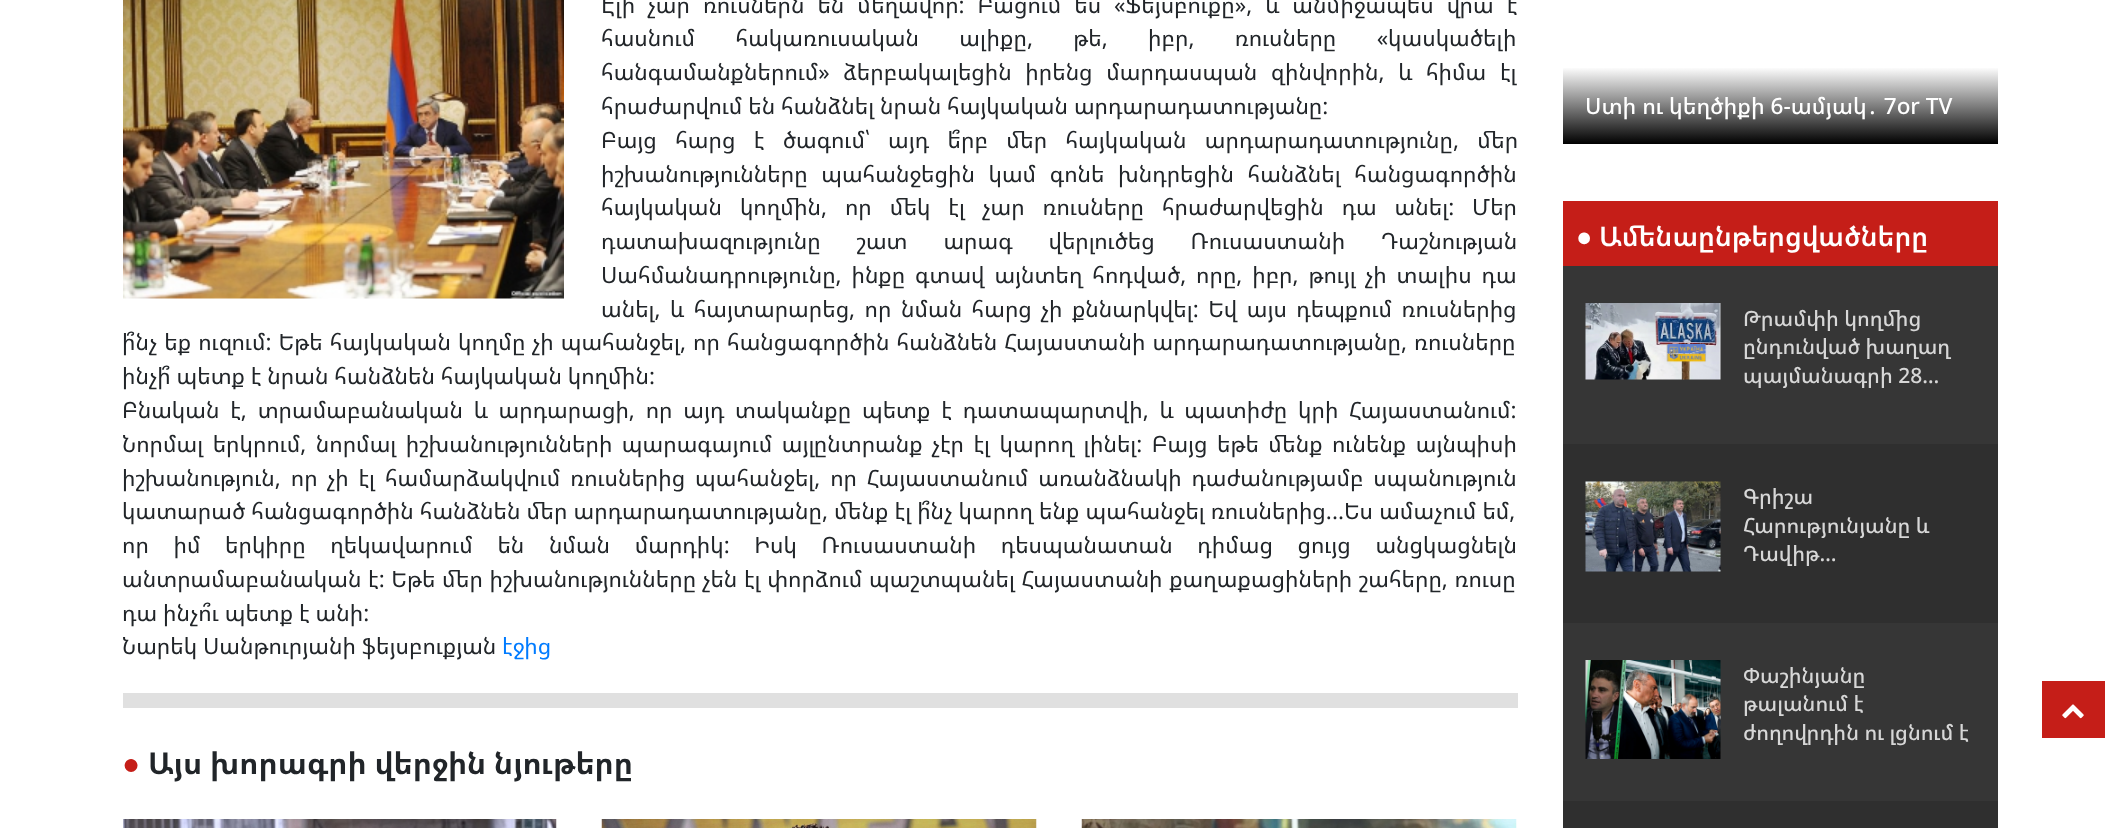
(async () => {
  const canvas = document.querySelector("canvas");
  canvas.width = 2119;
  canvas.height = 828;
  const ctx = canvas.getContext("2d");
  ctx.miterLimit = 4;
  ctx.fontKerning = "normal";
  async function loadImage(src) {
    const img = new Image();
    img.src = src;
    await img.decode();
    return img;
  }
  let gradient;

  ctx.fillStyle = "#ffffff";
  ctx.fillRect(0, 0, 2119, 828);
  ctx.drawImage(await loadImage("img/1.png"), 123, 0, 441, 299);
  ctx.fillStyle = "#e0e0e0";
  ctx.fillRect(123, 693, 1395, 15);
  ctx.drawImage(await loadImage("img/2.png"), 123, 819, 434, 9);
  ctx.drawImage(await loadImage("img/3.png"), 601, 819, 436, 9);
  ctx.drawImage(await loadImage("img/4.png"), 1081, 819, 436, 9);
  gradient = ctx.createLinearGradient(1781, 67, 1781, 144);
  gradient.addColorStop(0, "#ffffff");
  gradient.addColorStop(1, "#000000");
  ctx.fillStyle = gradient;
  ctx.fillRect(1563, 68, 435, 76);
  ctx.fillStyle = "#c51e18";
  ctx.fillRect(1563, 201, 435, 65);
  ctx.fillStyle = "#363636";
  ctx.fillRect(1563, 266, 435, 178);
  ctx.drawImage(await loadImage("img/5.png"), 1585, 303, 136, 77);
  ctx.fillStyle = "#2f2f2f";
  ctx.fillRect(1563, 444, 435, 179);
  ctx.drawImage(await loadImage("img/6.png"), 1585, 481, 136, 91);
  ctx.fillStyle = "#363636";
  ctx.fillRect(1563, 623, 435, 178);
  ctx.drawImage(await loadImage("img/7.png"), 1585, 660, 136, 99);
  ctx.fillStyle = "#2f2f2f";
  ctx.fillRect(1563, 801, 435, 27);
  ctx.fillStyle = "#c51e18";
  ctx.fillRect(2042, 681, 63, 57);
  ctx.drawImage(await loadImage("img/8.png"), 2062, 704, 22, 15);
  ctx.wordSpacing = "7.1px";
  ctx.font = "22.5px Noto Sans Armenian";
  ctx.fillStyle = "#212529";
  ctx.fillText("Էլի չար ռուսներն են մեղավոր: Բացում ես «Ֆեյսբուքը», և անմիջապես վրա է", 601, 13);
  ctx.wordSpacing = "34.5px";
  ctx.fillText("հասնում հակառուսական ալիքը, թե, իբր, ռուսները «կասկածելի", 601, 46);
  ctx.wordSpacing = "7.75px";
  ctx.fillText("հանգամանքներում» ձերբակալեցին իրենց մարդասպան զինվորին, և հիմա էլ", 601, 80);
  ctx.wordSpacing = "0px";
  ctx.fillText("հրաժարվում են հանձնել նրան հայկական արդարադատությանը:", 601, 114);
  ctx.wordSpacing = "12.5px";
  ctx.fillText("Բայց հարց է ծագում՝ այդ ե՞րբ մեր հայկական արդարադատությունը, մեր", 601, 148);
  ctx.wordSpacing = "7.75px";
  ctx.fillText("իշխանությունները պահանջեցին կամ գոնե խնդրեցին հանձնել հանցագործին", 601, 182);
  ctx.wordSpacing = "12px";
  ctx.fillText("հայկական կողմին, որ մեկ էլ չար ռուսները հրաժարվեցին դա անել: Մեր", 601, 215);
  ctx.wordSpacing = "30px";
  ctx.fillText("դատախազությունը շատ արագ վերլուծեց Ռուսաստանի Դաշնության", 601, 249);
  ctx.wordSpacing = "4px";
  ctx.fillText("Սահմանադրությունը, ինքը գտավ այնտեղ հոդված, որը, իբր, թույլ չի տալիս դա", 601, 283);
  ctx.wordSpacing = "3.6px";
  ctx.fillText("անել, և հայտարարեց, որ նման հարց չի քննարկվել: Եվ այս դեպքում ռուսներից", 601, 317);
  ctx.wordSpacing = "1.25px";
  ctx.fillText("ի՞նչ եք ուզում: Եթե հայկական կողմը չի պահանջել, որ հանցագործին հանձնեն Հայաստանի արդարադատությանը, ռուսները", 122, 350);
  ctx.wordSpacing = "0px";
  ctx.fillText("ինչի՞ պետք է նրան հանձնեն հայկական կողմին:", 122, 384);
  ctx.wordSpacing = "4.9px";
  ctx.fillText("Բնական է, տրամաբանական և արդարացի, որ այդ տականքը պետք է դատապարտվի, և պատիժը կրի Հայաստանում:", 122, 418);
  ctx.wordSpacing = "3.6px";
  ctx.fillText("Նորմալ երկրում, նորմալ իշխանությունների պարագայում այլընտրանք չէր էլ կարող լինել: Բայց եթե մենք ունենք այնպիսի", 122, 452);
  ctx.wordSpacing = "4px";
  ctx.fillText("իշխանություն, որ չի էլ համարձակվում ռուսներից պահանջել, որ Հայաստանում առանձնակի դաժանությամբ սպանություն", 122, 486);
  ctx.wordSpacing = "0.25px";
  ctx.fillText("կատարած հանցագործին հանձնեն մեր արդարադատությանը, մենք էլ ի՞նչ կարող ենք պահանջել ռուսներից...Ես ամաչում եմ,", 122, 519);
  ctx.wordSpacing = "18.75px";
  ctx.fillText("որ իմ երկիրը ղեկավարում են նման մարդիկ: Իսկ Ռուսաստանի դեսպանատան դիմաց ցույց անցկացնելն", 122, 553);
  ctx.wordSpacing = "0.75px";
  ctx.fillText("անտրամաբանական է: Եթե մեր իշխանությունները չեն էլ փորձում պաշտպանել Հայաստանի քաղաքացիների շահերը, ռուսը", 122, 587);
  ctx.wordSpacing = "0px";
  ctx.fillText("դա ինչո՞ւ պետք է անի:", 122, 621);
  ctx.fillText("Նարեկ Սանթուրյանի ֆեյսբուքյան", 122, 654);
  ctx.fillStyle = "#007bff";
  ctx.fillText("էջից", 502, 654);
  ctx.font = "bold 30px Liberation Sans";
  ctx.fillStyle = "#c51e18";
  ctx.fillText("●", 122, 774);
  ctx.font = "bold 30px Noto Sans Armenian";
  ctx.fillStyle = "#212529";
  ctx.fillText("Այս խորագրի վերջին նյութերը", 148, 774);
  ctx.font = "500 22.5px Noto Sans Armenian";
  ctx.fillStyle = "#ffffff";
  ctx.fillText("Ստի ու կեղծիքի 6-ամյակ․ 7or TV", 1585, 114);
  ctx.font = "bold 27px Liberation Sans";
  ctx.fillText("●", 1576, 246);
  ctx.font = "600 27px Noto Sans Armenian";
  ctx.fillText("Ամենաընթերցվածները", 1599, 246);
  ctx.font = "500 21px Noto Sans Armenian";
  ctx.fillStyle = "#d7d7d7";
  for (const [text, x, y] of [
    ["Թրամփի կողմից", 1743, 326],
    ["ընդունված խաղաղ", 1743, 354],
    ["պայմանագրի 28…", 1743, 383],
    ["Գրիշա", 1743, 504],
    ["Հարությունյանը և", 1743, 533],
    ["Դավիթ…", 1743, 561],
    ["Փաշինյանը", 1743, 683],
    ["թալանում է", 1743, 711],
    ["ժողովրդին ու լցնում է", 1743, 740],
  ]) {
    ctx.fillText(text, x, y);
  }
})();
